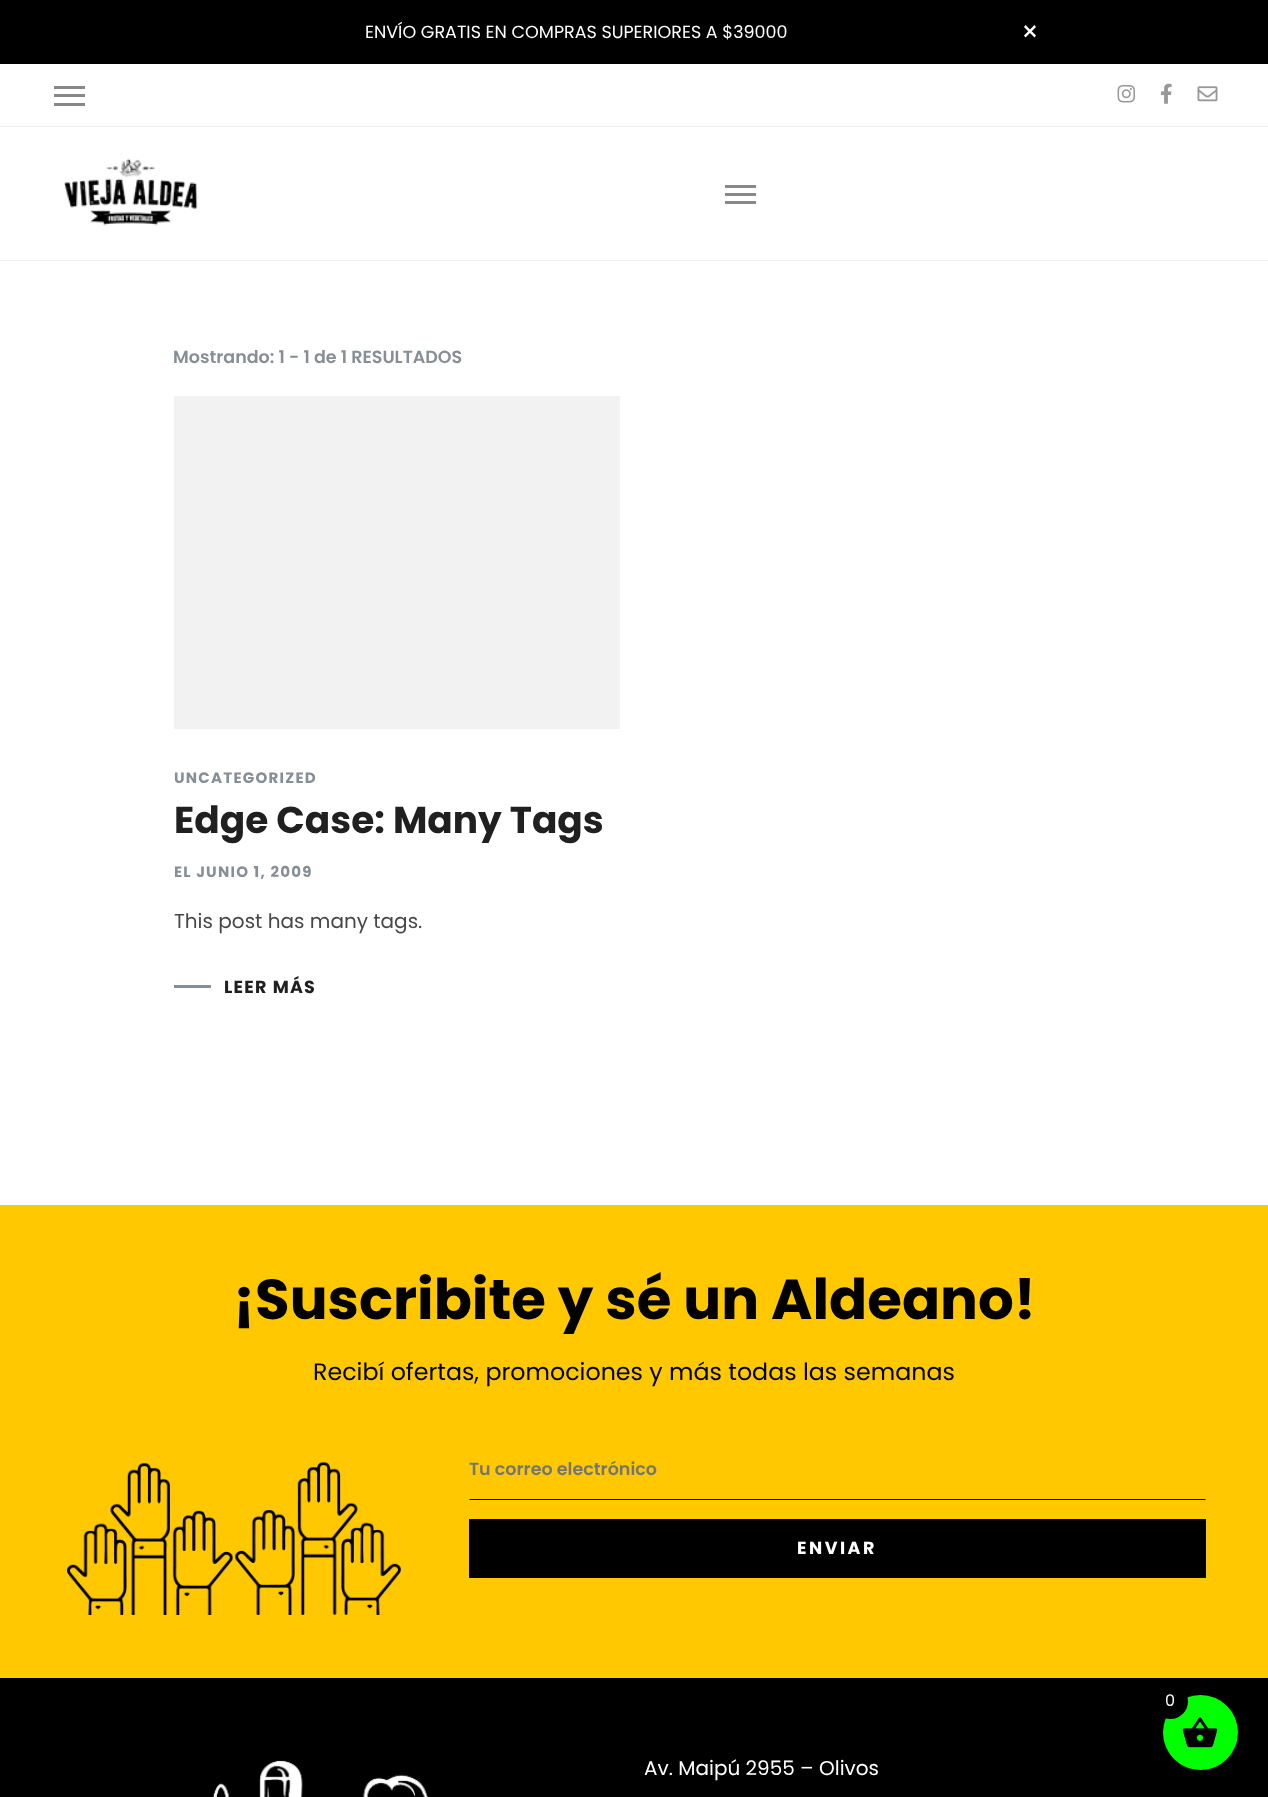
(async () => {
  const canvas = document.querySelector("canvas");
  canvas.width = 1268;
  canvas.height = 1797;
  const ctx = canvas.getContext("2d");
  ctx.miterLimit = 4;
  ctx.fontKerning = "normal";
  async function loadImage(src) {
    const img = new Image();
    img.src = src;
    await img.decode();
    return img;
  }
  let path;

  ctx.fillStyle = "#ffffff";
  ctx.fillRect(0, 0, 1268, 1797);
  ctx.fillStyle = "#000000";
  ctx.fillRect(0, 0, 1268, 64);
  ctx.fillStyle = "#ffffff";
  path = new Path2D("M1025.5 25L1036 35.5L1034.5 37.5L1024 27Z");
  ctx.fill(path);
  path = new Path2D("M1024 35.5L1034.5 25L1036 27L1025.5 37.5Z");
  ctx.fill(path);
  for (const [x, y, w, h, color] of [
    [0, 126, 1268, 1, "#ededed"],
    [54, 86, 31, 3, "#888888"],
    [54, 94, 31, 3, "#888888"],
    [54, 103, 31, 3, "#888888"],
  ]) {
    ctx.fillStyle = color;
    ctx.fillRect(x, y, w, h);
  }
  ctx.drawImage(await loadImage("img/1.png"), 1117, 85, 18, 18);
  ctx.drawImage(await loadImage("img/2.png"), 1160, 83, 12, 21);
  ctx.drawImage(await loadImage("img/3.png"), 1197, 86, 21, 16);
  ctx.fillStyle = "#f2f2f2";
  ctx.fillRect(0, 260, 1268, 1);
  ctx.drawImage(await loadImage("img/4.png"), 63, 158, 135, 68);
  for (const [x, y, w, h, color] of [
    [725, 185, 31, 3, "#888888"],
    [725, 193, 31, 3, "#888888"],
    [725, 201, 31, 3, "#888888"],
    [174, 396, 446, 333, "#f2f2f2"],
    [174, 985, 37, 3, "#868e96"],
    [0, 1205, 1268, 473, "#ffc800"],
  ]) {
    ctx.fillStyle = color;
    ctx.fillRect(x, y, w, h);
  }
  ctx.drawImage(await loadImage("img/5.png"), 67, 1462, 334, 153);
  ctx.fillStyle = "#000000";
  path = new Path2D("M1206 1500H469L470 1499H1205Z");
  ctx.fill(path);
  ctx.fillRect(469, 1519, 737, 59);
  ctx.fillRect(0, 1678, 1268, 119);
  ctx.drawImage(await loadImage("img/6.png"), 212, 1760, 217, 37);
  ctx.fillStyle = "#00ff00";
  ctx.beginPath();
  ctx.arc(1200.5, 1732.5, 37.5, 0, Math.PI * 2);
  ctx.fill();
  ctx.drawImage(await loadImage("img/7.png"), 1182, 1717, 36, 31);
  ctx.fillStyle = "#000000";
  ctx.beginPath();
  ctx.arc(1170.5, 1701.5, 17.5, 0, Math.PI * 2);
  ctx.fill();
  ctx.font = "17.5px Poppins";
  ctx.fillStyle = "#ffffff";
  ctx.fillText("ENVÍO GRATIS EN COMPRAS SUPERIORES A $39000", 365, 38);
  ctx.font = "600 17.5px Poppins";
  ctx.fillStyle = "#868e96";
  ctx.fillText("Mostrando: 1 - 1 de 1 RESULTADOS", 173, 363);
  ctx.letterSpacing = "1.25px";
  ctx.font = "bold 15px Poppins";
  ctx.fillText("UNCATEGORIZED", 174, 783);
  ctx.letterSpacing = "0px";
  ctx.font = "bold 37.5px Poppins";
  ctx.fillStyle = "#202020";
  ctx.fillText("Edge Case: Many Tags", 174, 833);
  ctx.letterSpacing = "1.25px";
  ctx.font = "bold 15px Poppins";
  ctx.fillStyle = "#868e96";
  ctx.fillText("EL JUNIO 1, 2009", 174, 877);
  ctx.letterSpacing = "0px";
  ctx.font = "20px Poppins";
  ctx.fillStyle = "#474747";
  ctx.fillText("This post has many tags.", 174, 928);
  ctx.letterSpacing = "1.25px";
  ctx.font = "bold 17.5px Poppins";
  ctx.fillStyle = "#202020";
  ctx.fillText("LEER MÁS", 224, 993);
  ctx.letterSpacing = "0px";
  ctx.font = "bold 56.25px Poppins";
  ctx.fillStyle = "#000000";
  ctx.fillText("¡Suscribite y sé un Aldeano!", 233, 1319);
  ctx.font = "23.75px Poppins";
  ctx.fillText("Recibí ofertas, promociones y más todas las semanas", 313, 1380);
  ctx.font = "600 17.5px Poppins";
  ctx.fillStyle = "#757575";
  ctx.fillText("Tu correo electrónico", 469, 1475);
  ctx.letterSpacing = "2.5px";
  ctx.font = "bold 17.5px Poppins";
  ctx.fillStyle = "#ffffff";
  ctx.fillText("ENVIAR", 797, 1554);
  ctx.letterSpacing = "0px";
  ctx.font = "20px Poppins";
  ctx.fillText("Av. Maipú 2955 – Olivos", 644, 1775);
  ctx.font = "16px Poppins";
  ctx.fillText("0", 1165, 1706);
})();
